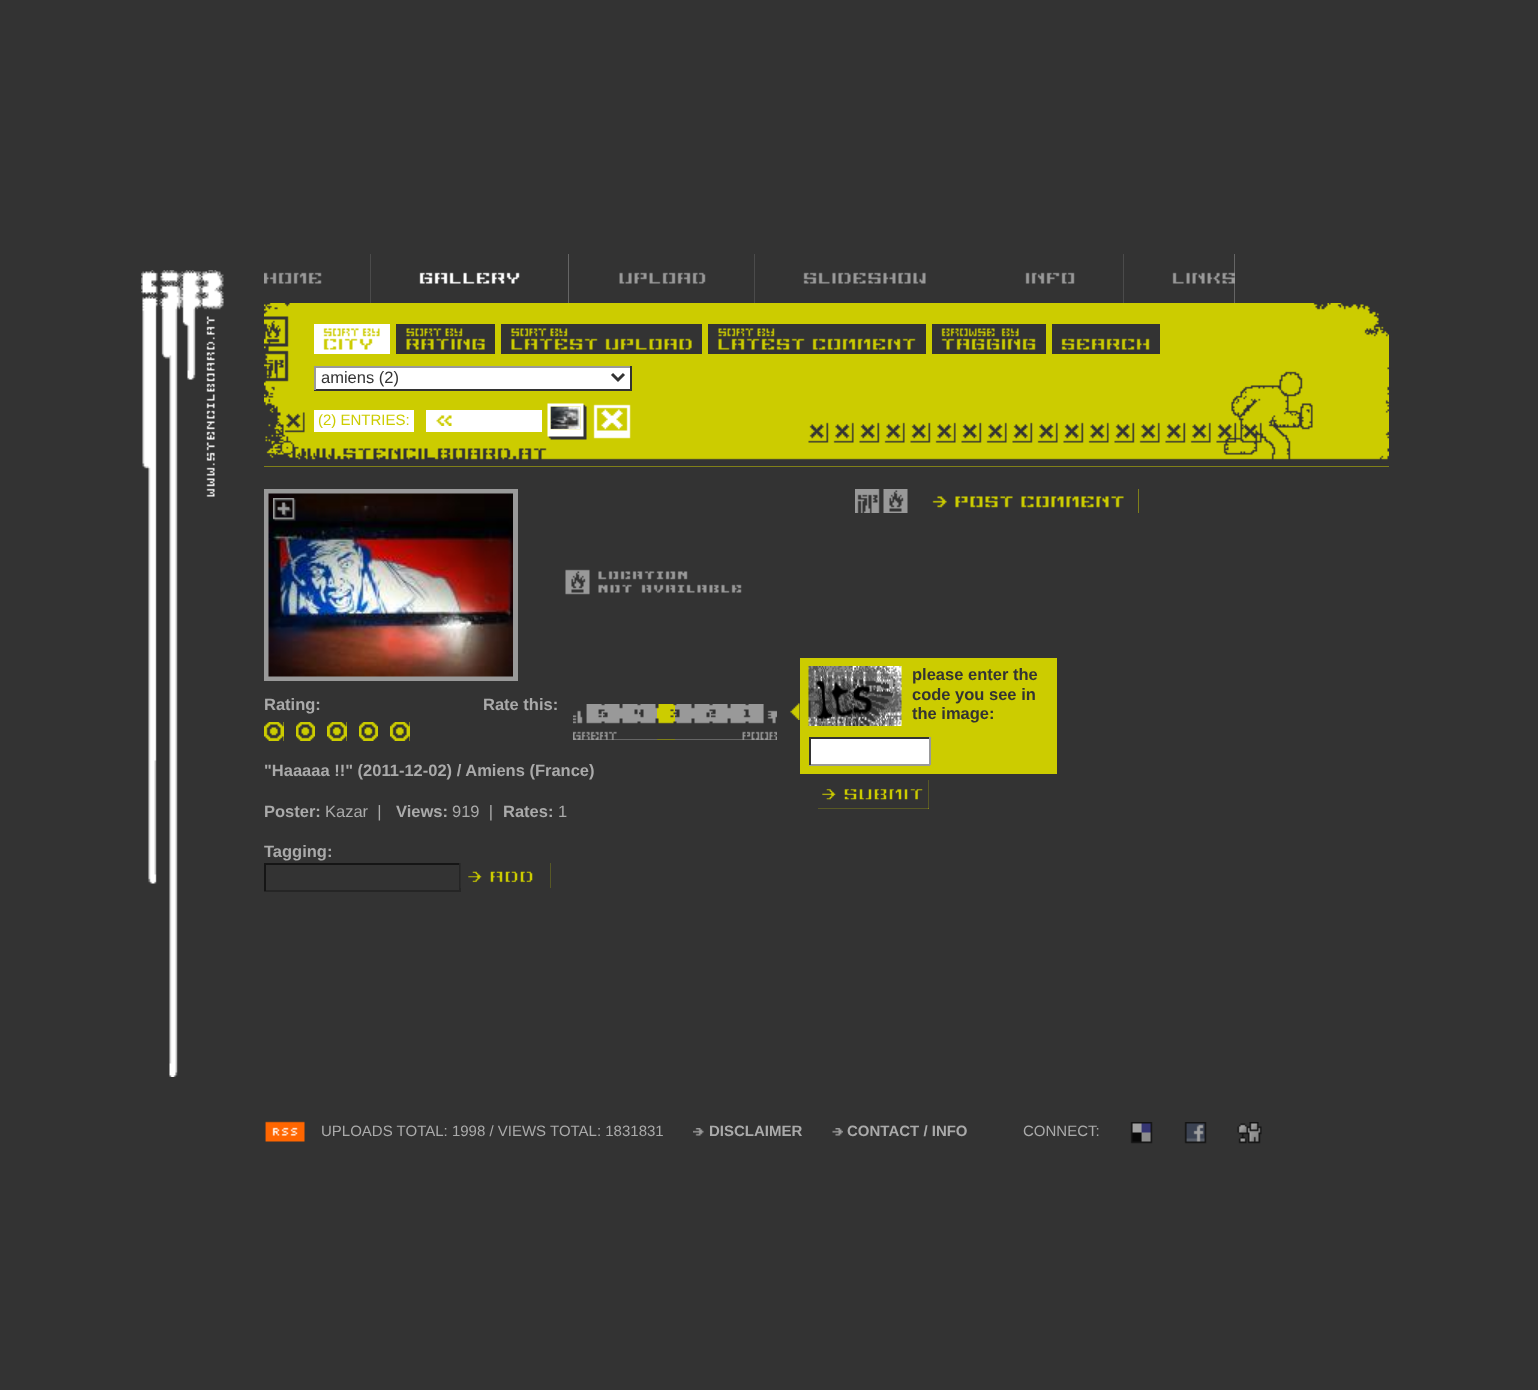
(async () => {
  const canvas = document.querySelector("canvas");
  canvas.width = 1538;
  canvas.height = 1390;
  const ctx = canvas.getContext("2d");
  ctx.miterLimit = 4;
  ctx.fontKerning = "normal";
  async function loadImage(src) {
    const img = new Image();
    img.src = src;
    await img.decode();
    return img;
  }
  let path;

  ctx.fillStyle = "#333333";
  ctx.fillRect(0, 0, 1538, 1390);
  ctx.drawImage(await loadImage("img/1.png"), 141, 270, 83, 807);
  ctx.fillStyle = "#999999";
  ctx.fillRect(264, 254, 107, 49);
  ctx.drawImage(await loadImage("img/2.png"), 264, 254, 107, 49);
  ctx.fillStyle = "#ffffff";
  ctx.fillRect(419, 254, 150, 49);
  ctx.drawImage(await loadImage("img/3.png"), 370, 254, 199, 49);
  ctx.fillStyle = "#999999";
  ctx.fillRect(619, 254, 136, 49);
  ctx.drawImage(await loadImage("img/4.png"), 568, 254, 187, 49);
  ctx.fillRect(803, 272, 123, 12);
  ctx.drawImage(await loadImage("img/5.png"), 754, 254, 221, 49);
  ctx.fillRect(1025, 254, 99, 49);
  ctx.drawImage(await loadImage("img/6.png"), 975, 254, 149, 49);
  ctx.fillRect(1172, 254, 63, 49);
  ctx.drawImage(await loadImage("img/7.png"), 1123, 254, 112, 49);
  ctx.fillStyle = "#cccc00";
  ctx.fillRect(264, 303, 1125, 164);
  ctx.drawImage(await loadImage("img/8.png"), 264, 303, 1125, 164);
  ctx.fillStyle = "#ffffff";
  ctx.fillRect(314, 324, 76, 30);
  ctx.drawImage(await loadImage("img/9.png"), 323, 328, 57, 22);
  ctx.fillStyle = "#333333";
  ctx.fillRect(396, 324, 99, 30);
  ctx.drawImage(await loadImage("img/10.png"), 406, 328, 79, 22);
  ctx.fillRect(501, 324, 201, 30);
  ctx.drawImage(await loadImage("img/11.png"), 511, 328, 181, 22);
  ctx.fillRect(708, 324, 218, 30);
  ctx.drawImage(await loadImage("img/12.png"), 718, 328, 198, 22);
  ctx.fillRect(932, 324, 114, 30);
  ctx.drawImage(await loadImage("img/13.png"), 941, 328, 95, 22);
  ctx.fillRect(1052, 324, 108, 30);
  ctx.drawImage(await loadImage("img/14.png"), 1061, 338, 89, 12);
  for (const [x, y, w, h, color] of [
    [316, 368, 314, 21, "#ffffff"],
    [314, 366, 318, 2, "#999999"],
    [630, 366, 2, 24, "#333333"],
    [314, 389, 318, 2, "#333333"],
    [314, 366, 2, 24, "#999999"],
  ]) {
    ctx.fillStyle = color;
    ctx.fillRect(x, y, w, h);
  }
  path = new Path2D("M612 374L618 380L624 374");
  ctx.strokeStyle = "#333333";
  ctx.lineWidth = 3;
  ctx.stroke(path);
  ctx.fillStyle = "#ffffff";
  ctx.fillRect(314, 410, 100, 22);
  ctx.fillRect(426, 410, 116, 22);
  ctx.drawImage(await loadImage("img/15.png"), 436, 415, 16, 11);
  ctx.drawImage(await loadImage("img/16.png"), 550, 406, 31, 23);
  ctx.drawImage(await loadImage("img/17.png"), 547, 403, 40, 37);
  ctx.drawImage(await loadImage("img/18.png"), 593, 404, 38, 35);
  ctx.fillStyle = "#cccc00";
  ctx.fillRect(932, 489, 207, 24);
  ctx.drawImage(await loadImage("img/19.png"), 855, 489, 284, 24);
  ctx.strokeStyle = "#999999";
  ctx.lineWidth = 5;
  ctx.strokeRect(266.5, 491.5, 249, 187);
  ctx.drawImage(await loadImage("img/20.png"), 268, 493, 245, 184);
  ctx.drawImage(await loadImage("img/21.png"), 273, 498, 23, 23);
  ctx.drawImage(await loadImage("img/22.png"), 565, 569, 177, 26);
  ctx.fillRect(264, 722, 20, 19);
  ctx.drawImage(await loadImage("img/23.png"), 264, 722, 20, 19);
  ctx.fillRect(296, 722, 19, 19);
  ctx.drawImage(await loadImage("img/24.png"), 296, 722, 19, 19);
  ctx.fillRect(327, 722, 20, 19);
  ctx.drawImage(await loadImage("img/25.png"), 327, 722, 20, 19);
  ctx.fillRect(359, 722, 19, 19);
  ctx.drawImage(await loadImage("img/24.png"), 359, 722, 19, 19);
  ctx.fillRect(390, 722, 20, 19);
  ctx.drawImage(await loadImage("img/25.png"), 390, 722, 20, 19);
  ctx.fillStyle = "#999999";
  ctx.fillRect(573, 704, 84, 36);
  ctx.drawImage(await loadImage("img/26.png"), 573, 704, 30, 36);
  ctx.drawImage(await loadImage("img/27.png"), 603, 704, 18, 36);
  ctx.drawImage(await loadImage("img/28.png"), 621, 704, 18, 36);
  ctx.drawImage(await loadImage("img/29.png"), 639, 704, 18, 36);
  ctx.fillStyle = "#cccc00";
  ctx.fillRect(657, 704, 18, 36);
  ctx.drawImage(await loadImage("img/30.png"), 657, 704, 18, 36);
  ctx.fillStyle = "#999999";
  ctx.fillRect(675, 704, 102, 36);
  ctx.drawImage(await loadImage("img/31.png"), 675, 704, 18, 36);
  ctx.drawImage(await loadImage("img/32.png"), 693, 704, 18, 36);
  ctx.drawImage(await loadImage("img/33.png"), 711, 704, 18, 36);
  ctx.drawImage(await loadImage("img/34.png"), 729, 704, 18, 36);
  ctx.drawImage(await loadImage("img/35.png"), 747, 704, 30, 36);
  ctx.fillStyle = "#cccc00";
  ctx.fillRect(800, 658, 257, 116);
  ctx.drawImage(await loadImage("img/36.png"), 790, 703, 10, 17);
  ctx.drawImage(await loadImage("img/37.png"), 808, 666, 94, 60);
  for (const [x, y, w, h, color] of [
    [811, 739, 118, 25, "#ffffff"],
    [809, 737, 121, 2, "#333333"],
    [929, 737, 2, 28, "#999999"],
    [809, 764, 121, 2, "#999999"],
    [809, 737, 2, 28, "#333333"],
    [818, 780, 111, 29, "#cccc00"],
  ]) {
    ctx.fillStyle = color;
    ctx.fillRect(x, y, w, h);
  }
  ctx.drawImage(await loadImage("img/38.png"), 818, 780, 111, 29);
  ctx.drawImage(await loadImage("img/39.png"), 818, 780, 111, 29);
  for (const [x, y, w, h, color] of [
    [264, 863, 197, 2, "#151515"],
    [459, 863, 2, 28, "#252525"],
    [264, 890, 197, 2, "#252525"],
    [264, 863, 2, 28, "#151515"],
    [467, 863, 84, 25, "#cccc00"],
  ]) {
    ctx.fillStyle = color;
    ctx.fillRect(x, y, w, h);
  }
  ctx.drawImage(await loadImage("img/40.png"), 460, 863, 91, 25);
  ctx.drawImage(await loadImage("img/41.png"), 467, 863, 84, 25);
  ctx.drawImage(await loadImage("img/42.png"), 265, 1121, 40, 21);
  ctx.drawImage(await loadImage("img/43.png"), 693, 1128, 11, 8);
  ctx.drawImage(await loadImage("img/44.png"), 832, 1128, 11, 8);
  ctx.drawImage(await loadImage("img/45.png"), 1130, 1122, 23, 22);
  ctx.drawImage(await loadImage("img/46.png"), 1184, 1122, 23, 22);
  ctx.drawImage(await loadImage("img/47.png"), 1237, 1122, 25, 22);
  ctx.font = "16.5px Liberation Sans";
  ctx.fillStyle = "#333333";
  ctx.fillText("amiens (2)", 321, 383);
  ctx.font = "15px Liberation Sans";
  ctx.fillStyle = "#cccc00";
  ctx.fillText("(2) ENTRIES:", 318, 425);
  ctx.font = "bold 16.5px Liberation Sans";
  ctx.fillStyle = "#aaaaaa";
  ctx.fillText("Rating:", 264, 710);
  ctx.fillText("Rate this:", 483, 710);
  ctx.fillStyle = "#333333";
  for (const [text, x, y] of [
    ["please enter the", 912, 680],
    ["code you see in", 912, 700],
    ["the image:", 912, 719],
  ]) {
    ctx.fillText(text, x, y);
  }
  ctx.fillStyle = "#aaaaaa";
  ctx.fillText("\"Haaaaa !!\" (2011-12-02) / Amiens (France)", 264, 776);
  ctx.fillText("Poster:", 264, 817);
  ctx.font = "16.5px Liberation Sans";
  ctx.fillText("Kazar  |", 325, 817);
  ctx.font = "bold 16.5px Liberation Sans";
  ctx.fillText("Views:", 396, 817);
  ctx.font = "16.5px Liberation Sans";
  ctx.fillText("919  |", 452, 817);
  ctx.font = "bold 16.5px Liberation Sans";
  ctx.fillText("Rates:", 503, 817);
  ctx.font = "16.5px Liberation Sans";
  ctx.fillText("1", 558, 817);
  ctx.font = "bold 16.5px Liberation Sans";
  ctx.fillText("Tagging:", 264, 857);
  ctx.font = "15px Liberation Sans";
  ctx.fillText("UPLOADS TOTAL: 1998 / VIEWS TOTAL: 1831831", 321, 1136);
  ctx.font = "bold 15px Liberation Sans";
  ctx.fillText("DISCLAIMER", 709, 1136);
  ctx.fillText("CONTACT / INFO", 847, 1136);
  ctx.font = "15px Liberation Sans";
  ctx.fillText("CONNECT:", 1023, 1136);
})();
